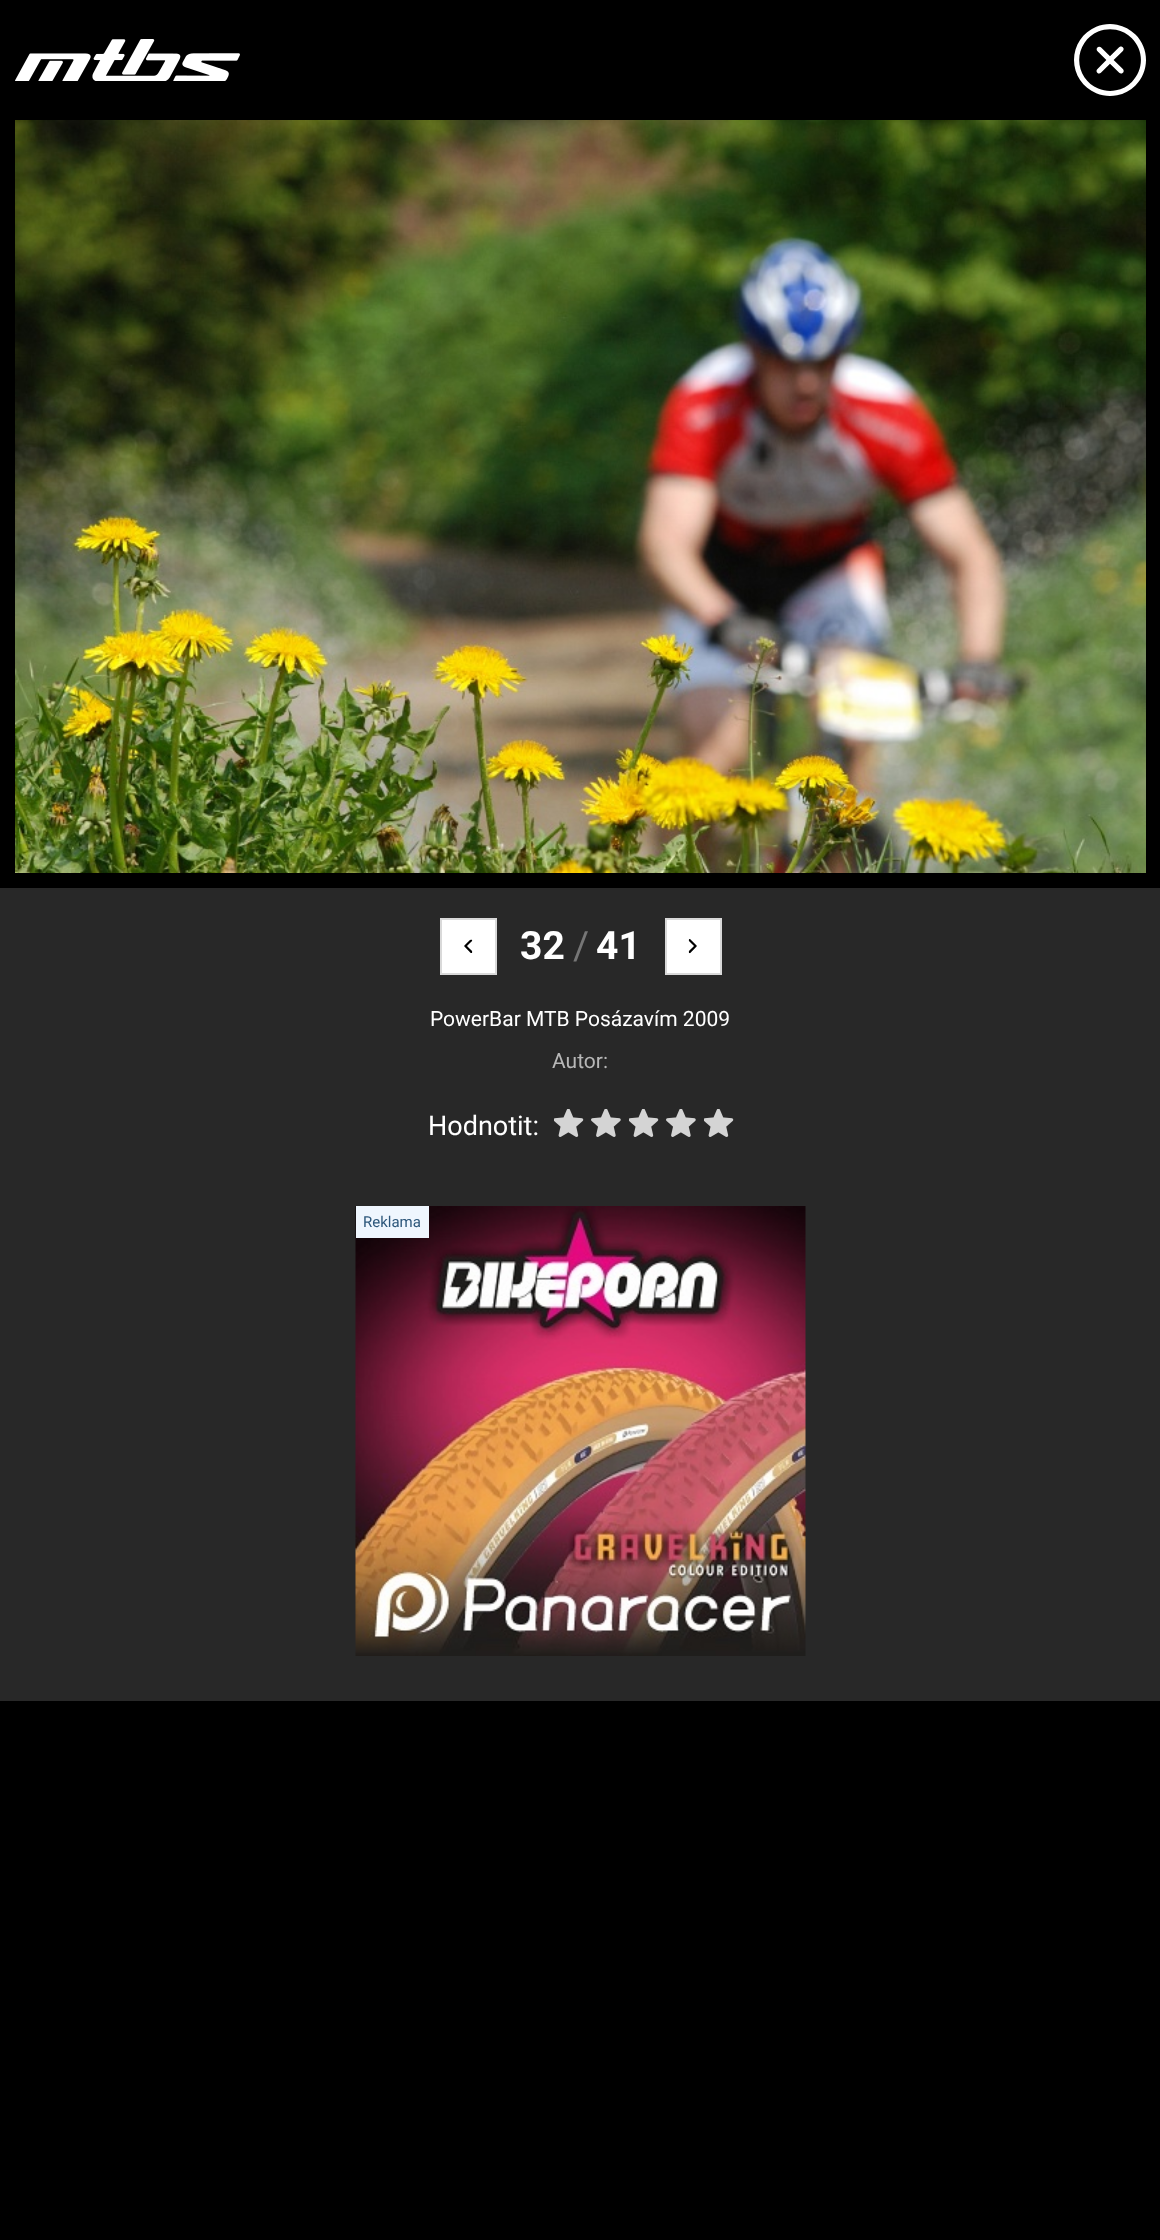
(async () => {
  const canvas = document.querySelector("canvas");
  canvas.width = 1160;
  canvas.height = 2240;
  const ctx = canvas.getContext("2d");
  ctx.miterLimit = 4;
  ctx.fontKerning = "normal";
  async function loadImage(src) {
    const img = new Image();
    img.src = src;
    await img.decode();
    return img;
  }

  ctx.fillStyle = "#000000";
  ctx.fillRect(0, 0, 1160, 2240);
  ctx.drawImage(await loadImage("img/1.png"), 15, 120, 1131, 753);
  ctx.fillStyle = "#282828";
  ctx.fillRect(0, 888, 1160, 813);
  ctx.drawImage(await loadImage("img/2.png"), 15, 39, 225, 42);
  ctx.drawImage(await loadImage("img/3.png"), 1074, 24, 72, 72);
  ctx.fillStyle = "#ffffff";
  ctx.beginPath();
  ctx.rect(441, 919, 55, 55);
  ctx.fill();
  ctx.strokeStyle = "#d9d9d9";
  ctx.lineWidth = 2;
  ctx.stroke();
  ctx.drawImage(await loadImage("img/4.png"), 464, 939, 9, 14);
  ctx.beginPath();
  ctx.rect(666, 919, 55, 55);
  ctx.fill();
  ctx.stroke();
  ctx.drawImage(await loadImage("img/5.png"), 688, 939, 9, 15);
  ctx.drawImage(await loadImage("img/6.png"), 554, 1109, 30, 28);
  ctx.drawImage(await loadImage("img/7.png"), 591, 1109, 30, 28);
  ctx.drawImage(await loadImage("img/6.png"), 629, 1109, 30, 28);
  ctx.drawImage(await loadImage("img/7.png"), 666, 1109, 30, 28);
  ctx.drawImage(await loadImage("img/6.png"), 704, 1109, 30, 28);
  ctx.drawImage(await loadImage("img/8.png"), 355, 1206, 451, 450);
  ctx.fillStyle = "#eff6fe";
  ctx.fillRect(356, 1206, 73, 32);
  ctx.font = "bold 39px Roboto";
  ctx.fillStyle = "#ffffff";
  ctx.fillText("32", 520, 959);
  ctx.font = "39px Roboto";
  ctx.fillStyle = "#767676";
  ctx.fillText("/", 573, 959);
  ctx.font = "bold 39px Roboto";
  ctx.fillStyle = "#ffffff";
  ctx.fillText("41", 596, 959);
  ctx.font = "21px Roboto";
  ctx.fillText("PowerBar MTB Posázavím 2009", 430, 1026);
  ctx.fillStyle = "#b7b7b7";
  ctx.fillText("Autor:", 552, 1068);
  ctx.font = "27px Roboto";
  ctx.fillStyle = "#ffffff";
  ctx.fillText("Hodnotit:", 428, 1135);
  ctx.font = "15px Roboto";
  ctx.fillStyle = "#2d577b";
  ctx.fillText("Reklama", 363, 1227);
})();
